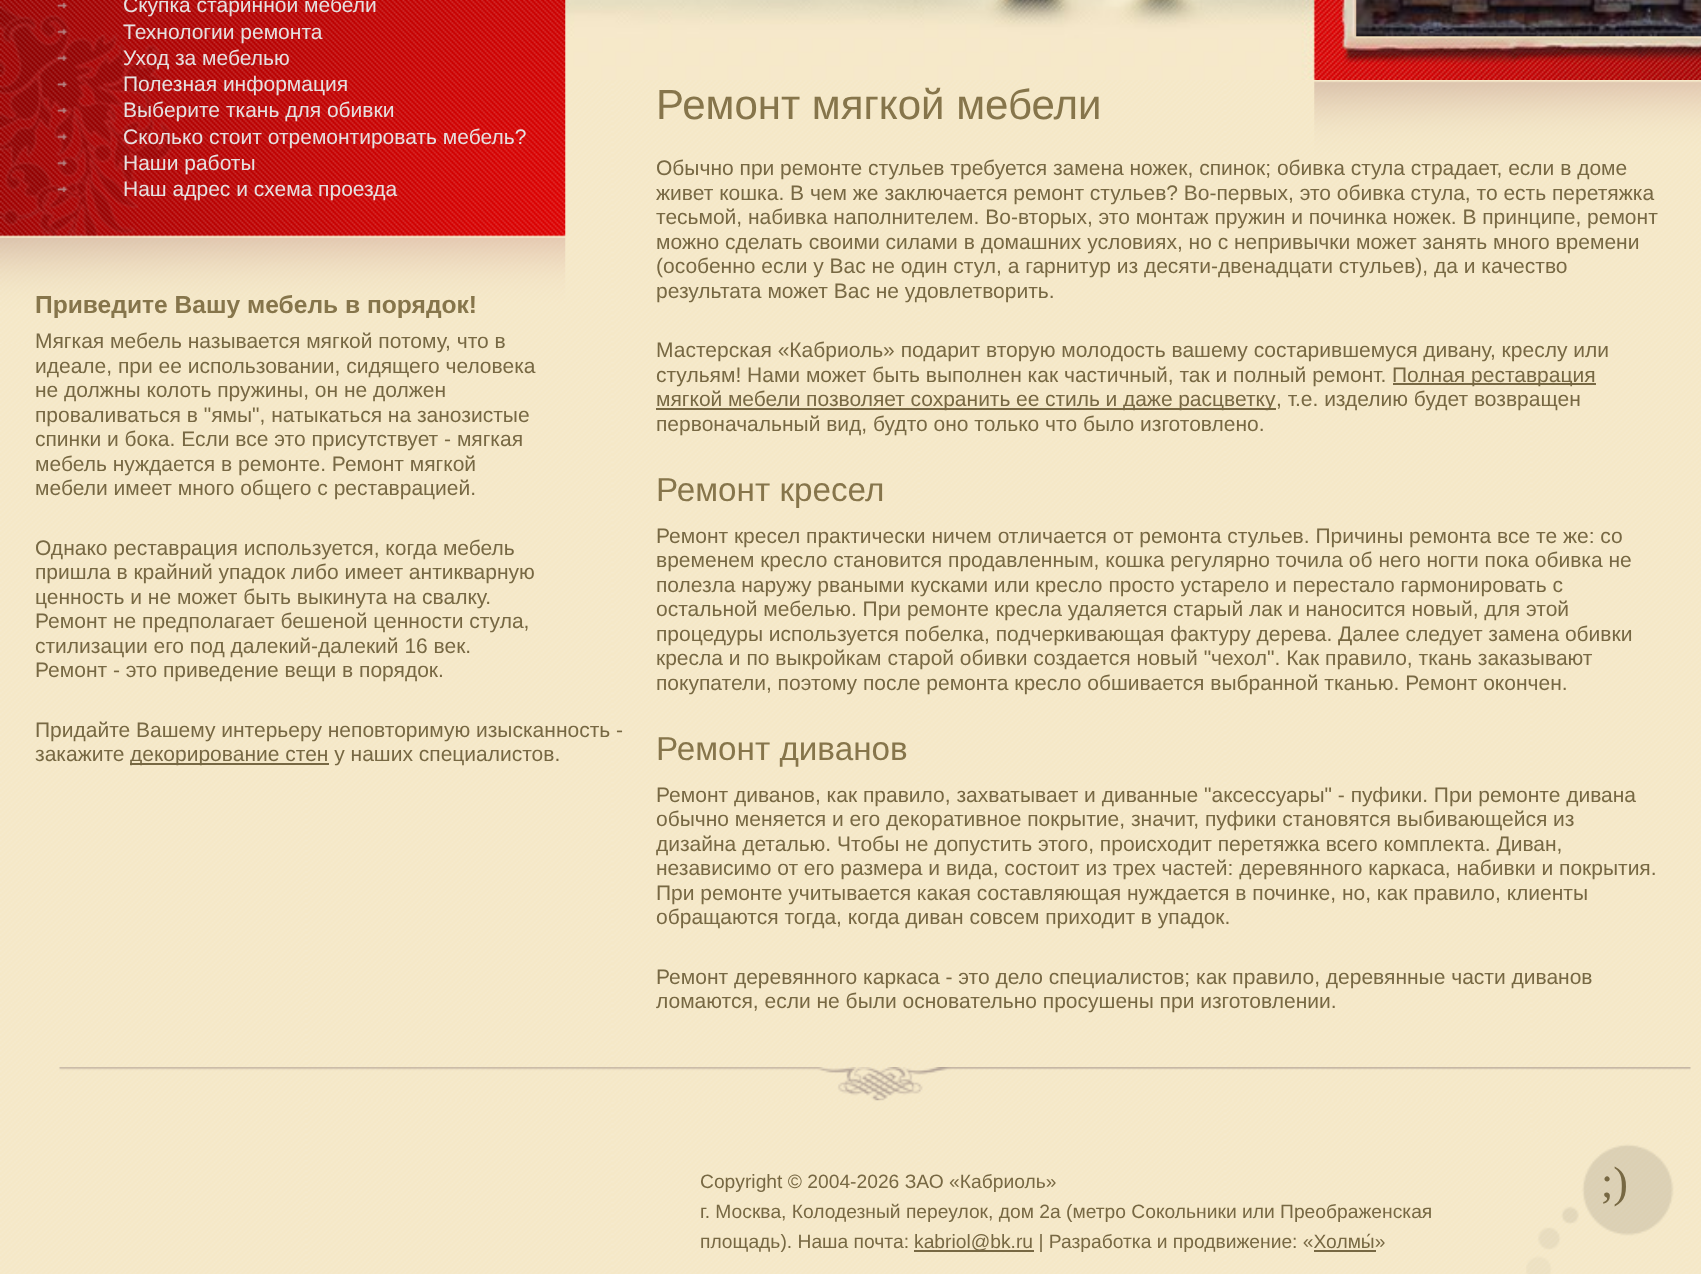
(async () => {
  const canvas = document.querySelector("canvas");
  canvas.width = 1701;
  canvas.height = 1274;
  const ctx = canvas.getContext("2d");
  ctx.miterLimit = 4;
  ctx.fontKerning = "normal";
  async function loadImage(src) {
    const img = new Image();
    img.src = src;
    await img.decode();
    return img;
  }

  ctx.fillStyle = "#ffffff";
  ctx.fillRect(0, 0, 1701, 1274);
  ctx.drawImage(await loadImage("img/1.png"), 0, 80, 1701, 1194);
  ctx.drawImage(await loadImage("img/2.png"), 0, 237, 566, 107);
  ctx.drawImage(await loadImage("img/13.png"), 565, 0, 1136, 80);
  ctx.drawImage(await loadImage("img/3.png"), 0, 0, 566, 238);
  ctx.drawImage(await loadImage("img/4.png"), 57, 3, 10, 6);
  ctx.drawImage(await loadImage("img/5.png"), 57, 29, 10, 6);
  ctx.drawImage(await loadImage("img/6.png"), 57, 55, 10, 6);
  ctx.drawImage(await loadImage("img/7.png"), 57, 81, 10, 6);
  ctx.drawImage(await loadImage("img/8.png"), 57, 108, 10, 6);
  ctx.drawImage(await loadImage("img/9.png"), 57, 134, 10, 6);
  ctx.drawImage(await loadImage("img/10.png"), 57, 160, 10, 6);
  ctx.drawImage(await loadImage("img/11.png"), 57, 186, 10, 6);
  ctx.fillStyle = "#776843";
  ctx.fillRect(130, 763, 199, 2);
  ctx.drawImage(await loadImage("img/12.png"), 1314, 80, 387, 120);
  ctx.fillRect(1393, 383, 203, 2);
  ctx.fillRect(656, 408, 620, 2);
  ctx.drawImage(await loadImage("img/14.png"), 1356, 0, 345, 37);
  ctx.drawImage(await loadImage("img/15.png"), 59, 1067, 1632, 34);
  ctx.fillRect(914, 1250, 120, 2);
  ctx.fillRect(1314, 1250, 62, 2);
  ctx.drawImage(await loadImage("img/16.png"), 1526, 1132, 161, 142);
  ctx.font = "21px Liberation Sans";
  ctx.fillStyle = "#e6e0e0";
  for (const [text, x, y] of [
    ["Скупка старинной мебели", 123, 12],
    ["Технологии ремонта", 123, 39],
    ["Уход за мебелью", 123, 65],
    ["Полезная информация", 123, 91],
    ["Выберите ткань для обивки", 123, 117],
    ["Сколько стоит отремонтировать мебель?", 123, 144],
    ["Наши работы", 123, 170],
    ["Наш адрес и схема проезда", 123, 196],
  ]) {
    ctx.fillText(text, x, y);
  }
  ctx.font = "bold 24.6px Liberation Sans";
  ctx.fillStyle = "#86754b";
  ctx.fillText("Приведите Вашу мебель в порядок!", 35, 313);
  ctx.font = "21px Liberation Sans";
  ctx.fillStyle = "#776843";
  for (const [text, x, y] of [
    ["Мягкая мебель называется мягкой потому, что в", 35, 348],
    ["идеале, при ее использовании, сидящего человека", 35, 373],
    ["не должны колоть пружины, он не должен", 35, 397],
    ["проваливаться в \"ямы\", натыкаться на занозистые", 35, 422],
    ["спинки и бока. Если все это присутствует - мягкая", 35, 446],
    ["мебель нуждается в ремонте. Ремонт мягкой", 35, 471],
    ["мебели имеет много общего с реставрацией.", 35, 495],
    ["Однако реставрация используется, когда мебель", 35, 555],
    ["пришла в крайний упадок либо имеет антикварную", 35, 579],
    ["ценность и не может быть выкинута на свалку.", 35, 604],
    ["Ремонт не предполагает бешеной ценности стула,", 35, 628],
    ["стилизации его под далекий-далекий 16 век.", 35, 653],
    ["Ремонт - это приведение вещи в порядок.", 35, 677],
    ["Придайте Вашему интерьеру неповторимую изысканность -", 35, 737],
    ["закажите", 35, 761],
    ["декорирование стен у наших специалистов.", 130, 761],
  ]) {
    ctx.fillText(text, x, y);
  }
  ctx.font = "42px Liberation Sans";
  ctx.fillStyle = "#86754b";
  ctx.fillText("Ремонт мягкой мебели", 656, 119);
  ctx.font = "21px Liberation Sans";
  ctx.fillStyle = "#776843";
  for (const [text, x, y] of [
    ["Обычно при ремонте стульев требуется замена ножек, спинок; обивка стула страдает, если в доме", 656, 175],
    ["живет кошка. В чем же заключается ремонт стульев? Во-первых, это обивка стула, то есть перетяжка", 656, 200],
    ["тесьмой, набивка наполнителем. Во-вторых, это монтаж пружин и починка ножек. В принципе, ремонт", 656, 224],
    ["можно сделать своими силами в домашних условиях, но с непривычки может занять много времени", 656, 249],
    ["(особенно если у Вас не один стул, а гарнитур из десяти-двенадцати стульев), да и качество", 656, 273],
    ["результата может Вас не удовлетворить.", 656, 298],
    ["Мастерская «Кабриоль» подарит вторую молодость вашему состарившемуся дивану, креслу или", 656, 357],
    ["стульям! Нами может быть выполнен как частичный, так и полный ремонт.", 656, 382],
    ["Полная реставрация", 1392, 382],
  ]) {
    ctx.fillText(text, x, y);
  }
  ctx.wordSpacing = "-0.25px";
  ctx.fillText("мягкой мебели позволяет сохранить ее стиль и даже расцветку", 656, 406);
  ctx.wordSpacing = "0px";
  ctx.fillText(", т.е. изделию будет возвращен", 1276, 406);
  ctx.fillText("первоначальный вид, будто оно только что было изготовлено.", 656, 431);
  ctx.font = "33.25px Liberation Sans";
  ctx.fillStyle = "#86754b";
  ctx.fillText("Ремонт кресел", 656, 501);
  ctx.font = "21px Liberation Sans";
  ctx.fillStyle = "#776843";
  for (const [text, x, y] of [
    ["Ремонт кресел практически ничем отличается от ремонта стульев. Причины ремонта все те же: со", 656, 543],
    ["временем кресло становится продавленным, кошка регулярно точила об него ногти пока обивка не", 656, 567],
    ["полезла наружу рваными кусками или кресло просто устарело и перестало гармонировать с", 656, 592],
    ["остальной мебелью. При ремонте кресла удаляется старый лак и наносится новый, для этой", 656, 616],
    ["процедуры используется побелка, подчеркивающая фактуру дерева. Далее следует замена обивки", 656, 641],
    ["кресла и по выкройкам старой обивки создается новый \"чехол\". Как правило, ткань заказывают", 656, 665],
    ["покупатели, поэтому после ремонта кресло обшивается выбранной тканью. Ремонт окончен.", 656, 690],
  ]) {
    ctx.fillText(text, x, y);
  }
  ctx.font = "33.25px Liberation Sans";
  ctx.fillStyle = "#86754b";
  ctx.fillText("Ремонт диванов", 656, 760);
  ctx.font = "21px Liberation Sans";
  ctx.fillStyle = "#776843";
  for (const [text, x, y] of [
    ["Ремонт диванов, как правило, захватывает и диванные \"аксессуары\" - пуфики. При ремонте дивана", 656, 802],
    ["обычно меняется и его декоративное покрытие, значит, пуфики становятся выбивающейся из", 656, 826],
    ["дизайна деталью. Чтобы не допустить этого, происходит перетяжка всего комплекта. Диван,", 656, 851],
    ["независимо от его размера и вида, состоит из трех частей: деревянного каркаса, набивки и покрытия.", 656, 875],
    ["При ремонте учитывается какая составляющая нуждается в починке, но, как правило, клиенты", 656, 900],
    ["обращаются тогда, когда диван совсем приходит в упадок.", 656, 924],
    ["Ремонт деревянного каркаса - это дело специалистов; как правило, деревянные части диванов", 656, 984],
    ["ломаются, если не были основательно просушены при изготовлении.", 656, 1008],
  ]) {
    ctx.fillText(text, x, y);
  }
  ctx.font = "19.25px Liberation Sans";
  for (const [text, x, y] of [
    ["Copyright © 2004-2026 ЗАО «Кабриоль»", 700, 1188],
    ["г. Москва, Колодезный переулок, дом 2а (метро Сокольники или Преображенская", 700, 1218],
    ["площадь). Наша почта:", 700, 1248],
    ["kabriol@bk.ru | Разработка и продвижение: «Холмы́»", 914, 1248],
  ]) {
    ctx.fillText(text, x, y);
  }
  ctx.font = "44px Liberation Serif";
  ctx.fillText(";)", 1601, 1197);
})();
